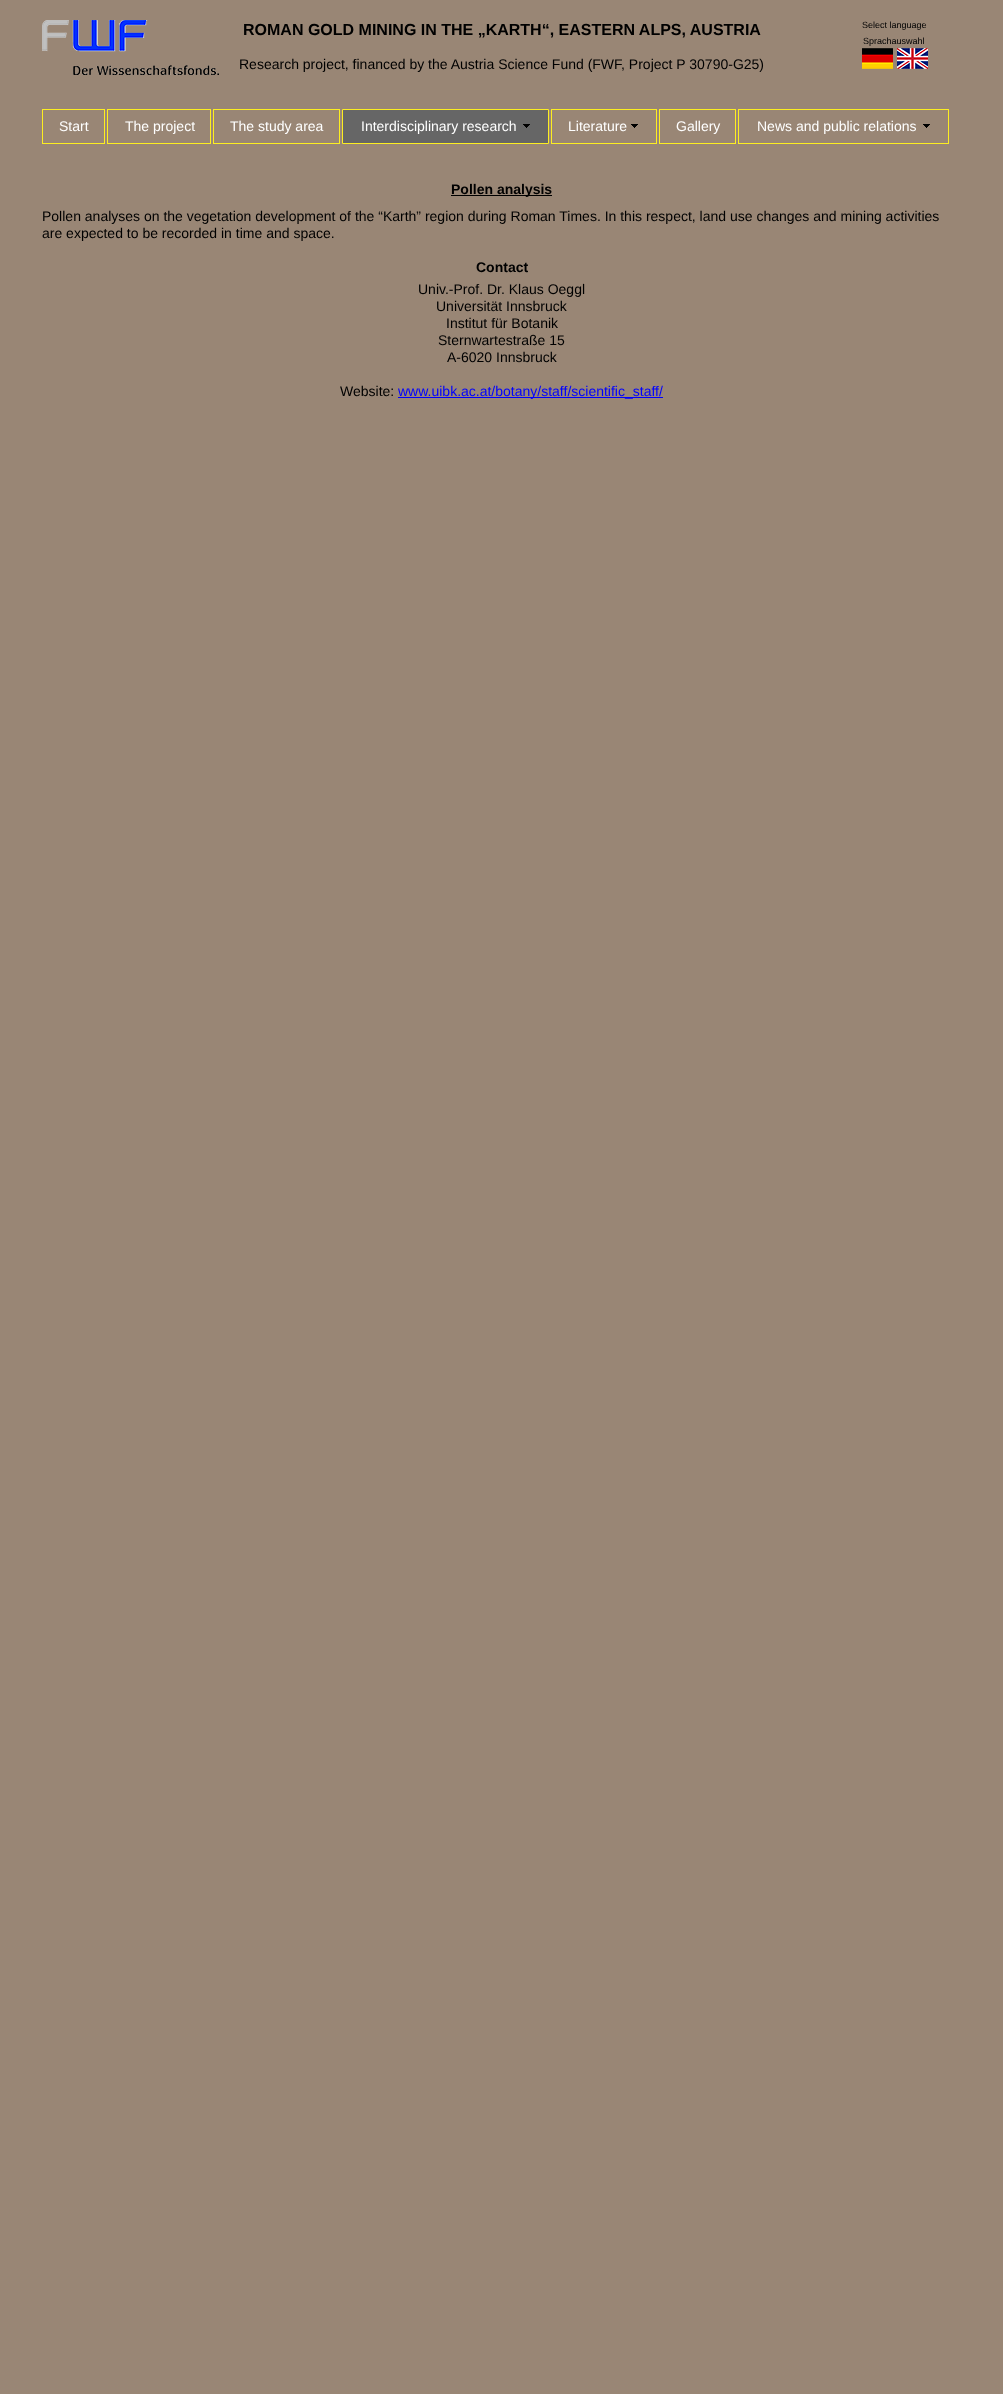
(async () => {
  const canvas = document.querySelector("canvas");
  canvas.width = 1003;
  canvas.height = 2394;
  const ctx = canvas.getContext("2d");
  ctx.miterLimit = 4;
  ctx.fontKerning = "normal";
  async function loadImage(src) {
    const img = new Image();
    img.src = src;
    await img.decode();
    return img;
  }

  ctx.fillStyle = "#998675";
  ctx.fillRect(0, 0, 1003, 2394);
  ctx.drawImage(await loadImage("img/1.png"), 42, 20, 177, 55);
  ctx.drawImage(await loadImage("img/2.png"), 862, 48, 31, 21);
  ctx.drawImage(await loadImage("img/3.png"), 897, 48, 31, 21);
  ctx.strokeStyle = "#fcee21";
  ctx.strokeRect(42.5, 109.5, 62, 34);
  ctx.strokeRect(107.5, 109.5, 103, 34);
  ctx.strokeRect(213.5, 109.5, 126, 34);
  ctx.fillStyle = "#666666";
  ctx.beginPath();
  ctx.rect(342.5, 109.5, 206, 34);
  ctx.fill();
  ctx.stroke();
  ctx.drawImage(await loadImage("img/4.png"), 523, 124, 7, 4);
  ctx.strokeRect(551.5, 109.5, 105, 34);
  ctx.drawImage(await loadImage("img/5.png"), 631, 124, 7, 4);
  ctx.strokeRect(659.5, 109.5, 76, 34);
  ctx.strokeRect(738.5, 109.5, 210, 34);
  ctx.drawImage(await loadImage("img/5.png"), 923, 124, 7, 4);
  ctx.fillStyle = "#000000";
  ctx.fillRect(451, 195, 101, 1);
  ctx.fillStyle = "#0000ff";
  ctx.fillRect(398, 397, 265, 1);
  ctx.font = "bold 16px Liberation Sans";
  ctx.fillStyle = "#000000";
  ctx.fillText("ROMAN GOLD MINING IN THE „KARTH“, EASTERN ALPS, AUSTRIA", 243, 35);
  ctx.font = "14px Liberation Sans";
  ctx.fillText("Research project, financed by the Austria Science Fund (FWF, Project P 30790-G25)", 239, 69);
  ctx.font = "9px Liberation Sans";
  ctx.fillText("Select language", 862, 28);
  ctx.fillText("Sprachauswahl", 863, 44);
  ctx.font = "14px Liberation Sans";
  ctx.fillStyle = "#ffffff";
  for (const [text, x, y] of [
    ["Start", 59, 131],
    ["The project", 125, 131],
    ["The study area", 230, 131],
    ["Interdisciplinary research", 361, 131],
    ["Literature", 568, 131],
    ["Gallery", 676, 131],
    ["News and public relations", 757, 131],
  ]) {
    ctx.fillText(text, x, y);
  }
  ctx.font = "bold 14px Liberation Sans";
  ctx.fillStyle = "#000000";
  ctx.fillText("Pollen analysis", 451, 194);
  ctx.font = "14px Liberation Sans";
  ctx.fillText("Pollen analyses on the vegetation development of the “Karth” region during Roman Times. In this respect, land use changes and mining activities", 42, 221);
  ctx.fillText("are expected to be recorded in time and space.", 42, 238);
  ctx.font = "bold 14px Liberation Sans";
  ctx.fillText("Contact", 476, 272);
  ctx.font = "14px Liberation Sans";
  for (const [text, x, y] of [
    ["Univ.-Prof. Dr. Klaus Oeggl", 418, 294],
    ["Universität Innsbruck", 436, 311],
    ["Institut für Botanik", 446, 328],
    ["Sternwartestraße 15", 438, 345],
    ["A-6020 Innsbruck", 447, 362],
    ["Website:", 340, 396],
  ]) {
    ctx.fillText(text, x, y);
  }
  ctx.fillStyle = "#0000ff";
  ctx.fillText("www.uibk.ac.at/botany/staff/scientific_staff/", 398, 396);
})();
